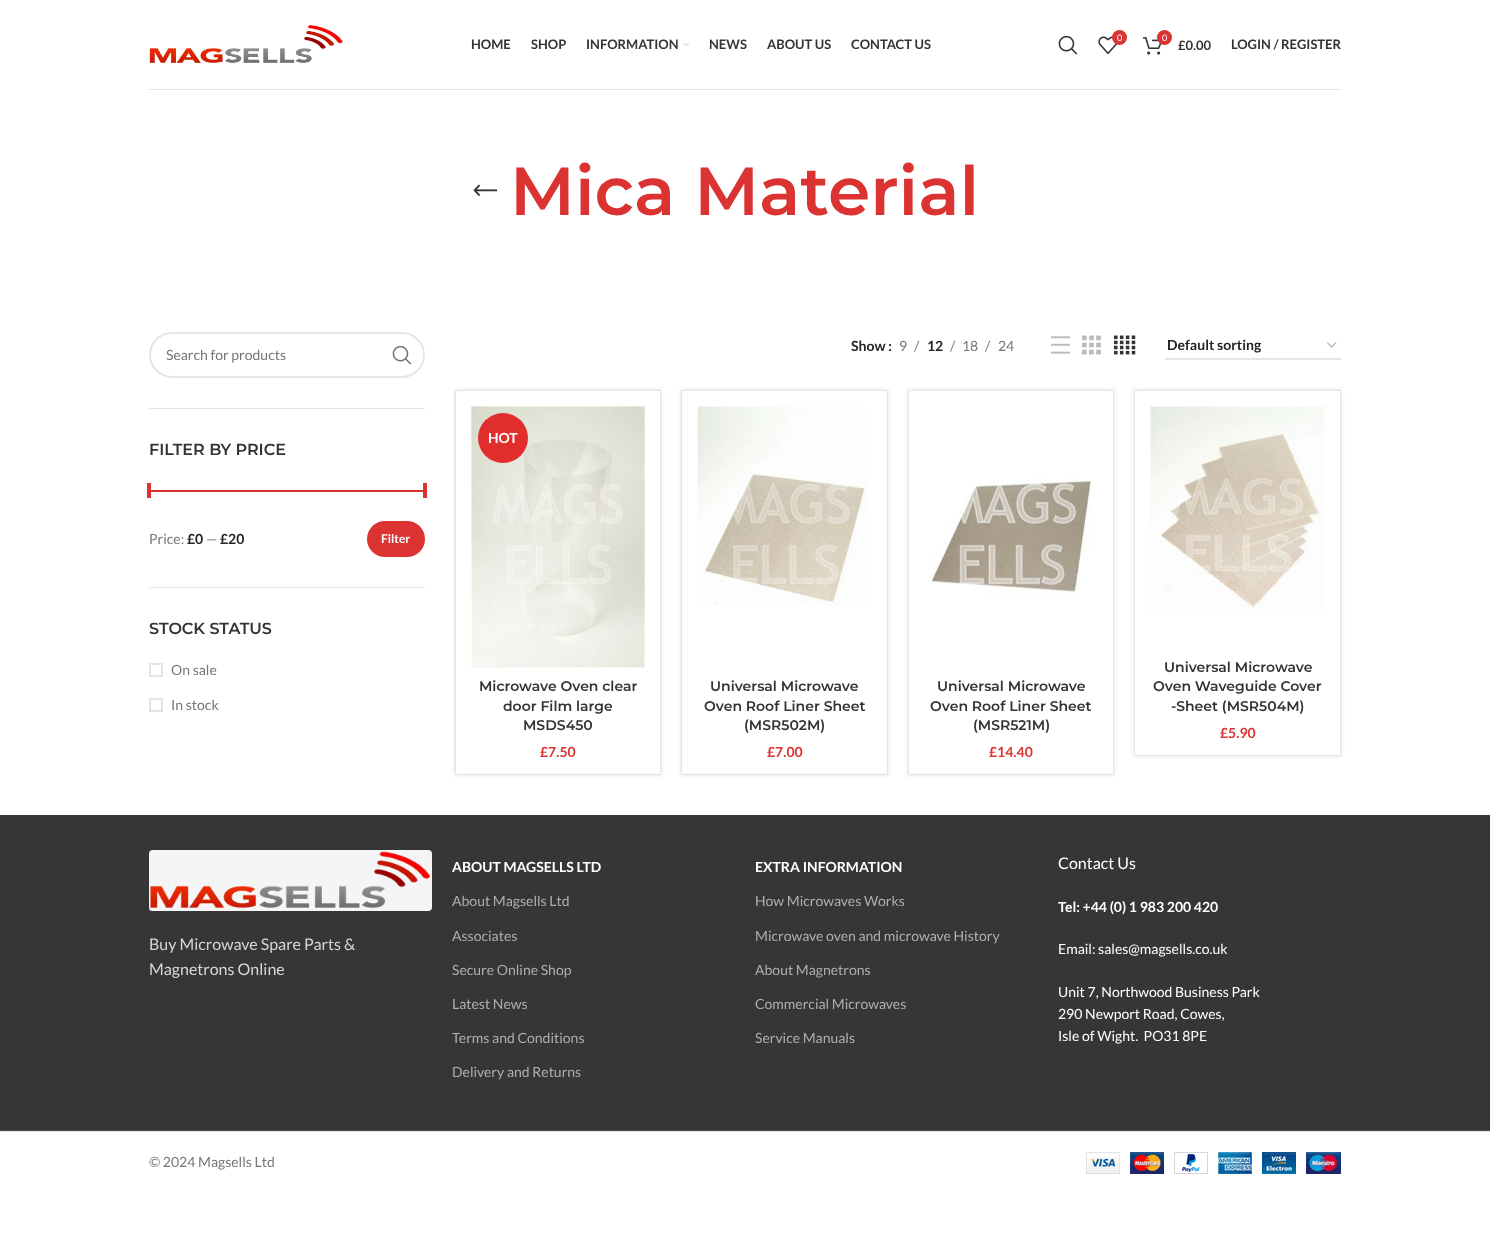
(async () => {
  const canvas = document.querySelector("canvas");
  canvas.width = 1490;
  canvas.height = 1245;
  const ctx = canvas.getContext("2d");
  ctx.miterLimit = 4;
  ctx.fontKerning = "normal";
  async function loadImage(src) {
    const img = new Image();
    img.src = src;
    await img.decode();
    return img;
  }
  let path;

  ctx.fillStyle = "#ffffff";
  ctx.fillRect(0, 0, 1490, 1245);
  ctx.fillStyle = "#e3e3e3";
  ctx.fillRect(149, 89, 1192, 1);
  ctx.drawImage(await loadImage("img/1.png"), 149, 25, 194, 40);
  ctx.drawImage(await loadImage("img/2.png"), 683, 42, 6, 4);
  ctx.drawImage(await loadImage("img/3.png"), 1058, 35, 20, 20);
  ctx.drawImage(await loadImage("img/4.png"), 1098, 36, 20, 18);
  ctx.fillStyle = "#db3232";
  ctx.beginPath();
  ctx.arc(1119.5, 37.5, 7.5, 0, Math.PI * 2);
  ctx.fill();
  ctx.drawImage(await loadImage("img/5.png"), 1143, 37, 19, 18);
  ctx.beginPath();
  ctx.arc(1164.5, 37.5, 7.5, 0, Math.PI * 2);
  ctx.fill();
  ctx.drawImage(await loadImage("img/6.png"), 473, 184, 24, 13);
  ctx.fillStyle = "#e4e4e4";
  ctx.fillRect(149, 408, 276, 1);
  ctx.beginPath();
  ctx.roundRect(150, 333, 274, 44, 22);
  ctx.strokeStyle = "#e6e6e6";
  ctx.lineWidth = 2;
  ctx.stroke();
  ctx.drawImage(await loadImage("img/7.png"), 392, 345, 20, 20);
  for (const [x, y, w, h, color] of [
    [149, 587, 276, 1, "#e4e4e4"],
    [149, 490, 276, 2, "#db3232"],
    [147, 483, 4, 15, "#db3232"],
    [423, 483, 4, 15, "#db3232"],
  ]) {
    ctx.fillStyle = color;
    ctx.fillRect(x, y, w, h);
  }
  ctx.beginPath();
  ctx.roundRect(367, 521, 58, 36, 18);
  ctx.fill();
  ctx.strokeStyle = "#e4e4e4";
  ctx.strokeRect(150, 664, 12, 12);
  ctx.strokeRect(150, 699, 12, 12);
  ctx.drawImage(await loadImage("img/8.png"), 1051, 336, 19, 18);
  ctx.drawImage(await loadImage("img/9.png"), 1082, 335, 19, 20);
  ctx.drawImage(await loadImage("img/10.png"), 1114, 335, 22, 20);
  path = new Path2D("M1327.5 342.5L1331.5 347L1336 342.5");
  ctx.strokeStyle = "#bbbbbb";
  ctx.lineWidth = 1.4;
  ctx.stroke(path);
  ctx.fillStyle = "#e6e6e6";
  ctx.fillRect(1165, 358, 176, 2);
  ctx.save();
  path = new Path2D("M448 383H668V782H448ZM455 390H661V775H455Z");
  ctx.clip(path, "evenodd");
  ctx.fillStyle = "rgba(0, 0, 0, 0.12)";
  ctx.filter = "blur(2px)";
  ctx.beginPath();
  ctx.rect(455, 390, 206, 385);
  ctx.fill();
  ctx.filter = "none";
  ctx.restore();
  ctx.strokeStyle = "#e4e4e4";
  ctx.lineWidth = 1;
  ctx.strokeRect(455.5, 390.5, 205, 384);
  ctx.drawImage(await loadImage("img/11.png"), 471, 406, 174, 262);
  ctx.fillStyle = "#e22d2d";
  ctx.beginPath();
  ctx.arc(503, 438, 25, 0, Math.PI * 2);
  ctx.fill();
  ctx.save();
  path = new Path2D("M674 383H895V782H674ZM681 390H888V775H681Z");
  ctx.clip(path, "evenodd");
  ctx.fillStyle = "rgba(0, 0, 0, 0.12)";
  ctx.filter = "blur(2px)";
  ctx.beginPath();
  ctx.rect(681, 390, 207, 385);
  ctx.fill();
  ctx.filter = "none";
  ctx.restore();
  ctx.strokeRect(681.5, 390.5, 206, 384);
  ctx.drawImage(await loadImage("img/12.png"), 697, 406, 169, 199);
  ctx.save();
  path = new Path2D("M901 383H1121V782H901ZM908 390H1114V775H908Z");
  ctx.clip(path, "evenodd");
  ctx.fillStyle = "rgba(0, 0, 0, 0.12)";
  ctx.filter = "blur(2px)";
  ctx.beginPath();
  ctx.rect(908, 390, 206, 385);
  ctx.fill();
  ctx.filter = "none";
  ctx.restore();
  ctx.strokeRect(908.5, 390.5, 205, 384);
  ctx.drawImage(await loadImage("img/13.png"), 930, 479, 161, 116);
  ctx.save();
  path = new Path2D("M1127 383H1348V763H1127ZM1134 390H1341V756H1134Z");
  ctx.clip(path, "evenodd");
  ctx.fillStyle = "rgba(0, 0, 0, 0.12)";
  ctx.filter = "blur(2px)";
  ctx.beginPath();
  ctx.rect(1134, 390, 207, 366);
  ctx.fill();
  ctx.filter = "none";
  ctx.restore();
  ctx.strokeRect(1134.5, 390.5, 206, 365);
  ctx.drawImage(await loadImage("img/14.png"), 1150, 406, 175, 209);
  ctx.fillStyle = "#363636";
  ctx.fillRect(0, 815, 1490, 315);
  ctx.fillStyle = "#4a4a4a";
  ctx.fillRect(0, 1130, 1490, 1);
  ctx.fillStyle = "#f5f5f5";
  ctx.beginPath();
  ctx.roundRect(149, 850, 283, 61, 4);
  ctx.fill();
  ctx.drawImage(await loadImage("img/15.png"), 149, 851, 282, 60);
  ctx.fillStyle = "#e4e4e4";
  ctx.fillRect(0, 1131, 1490, 1);
  ctx.drawImage(await loadImage("img/16.png"), 1086, 1152, 255, 22);
  ctx.font = "bold 13px Lato";
  ctx.fillStyle = "#333333";
  for (const [text, x, y] of [
    ["HOME", 471, 49],
    ["SHOP", 531, 49],
    ["INFORMATION", 586, 49],
    ["NEWS", 709, 49],
    ["ABOUT US", 767, 49],
    ["CONTACT US", 851, 49],
  ]) {
    ctx.fillText(text, x, y);
  }
  ctx.font = "9px Lato";
  ctx.fillStyle = "#ffffff";
  ctx.fillText("0", 1117, 41);
  ctx.fillText("0", 1162, 41);
  ctx.font = "bold 13px Lato";
  ctx.fillStyle = "#333333";
  ctx.fillText("£0.00", 1178, 50);
  ctx.fillText("LOGIN / REGISTER", 1231, 49);
  ctx.font = "600 68px Montserrat";
  ctx.fillStyle = "#db3232";
  ctx.fillText("Mica Material", 510, 215);
  ctx.font = "14px Lato";
  ctx.fillStyle = "#767676";
  ctx.fillText("Search for products", 166, 360);
  ctx.font = "600 16px Montserrat";
  ctx.fillStyle = "#333333";
  ctx.fillText("FILTER BY PRICE", 149, 455);
  ctx.font = "14px Lato";
  ctx.fillStyle = "#767676";
  ctx.fillText("Price:", 149, 544);
  ctx.font = "bold 14px Lato";
  ctx.fillStyle = "#242424";
  ctx.fillText("£0", 187, 544);
  ctx.font = "14px Lato";
  ctx.fillStyle = "#767676";
  ctx.fillText("—", 206, 544);
  ctx.font = "bold 14px Lato";
  ctx.fillStyle = "#242424";
  ctx.fillText("£20", 220, 544);
  ctx.font = "bold 12px Lato";
  ctx.fillStyle = "#ffffff";
  ctx.fillText("Filter", 381, 543);
  ctx.font = "600 16px Montserrat";
  ctx.fillStyle = "#333333";
  ctx.fillText("STOCK STATUS", 149, 634);
  ctx.font = "14px Lato";
  ctx.fillStyle = "#767676";
  ctx.fillText("On sale", 171, 675);
  ctx.fillText("In stock", 171, 710);
  ctx.font = "bold 14px Lato";
  ctx.fillStyle = "#242424";
  ctx.fillText("Show :", 851, 351);
  ctx.font = "14px Lato";
  ctx.fillStyle = "#767676";
  ctx.fillText("9", 899, 351);
  ctx.fillText("/", 914, 351);
  ctx.font = "bold 14px Lato";
  ctx.fillStyle = "#242424";
  ctx.fillText("12", 927, 351);
  ctx.font = "14px Lato";
  ctx.fillStyle = "#767676";
  for (const [text, x, y] of [
    ["/", 950, 351],
    ["18", 962, 351],
    ["/", 985, 351],
    ["24", 998, 351],
  ]) {
    ctx.fillText(text, x, y);
  }
  ctx.font = "bold 14px Lato";
  ctx.fillStyle = "#242424";
  ctx.fillText("Default sorting", 1167, 350);
  ctx.fillStyle = "#ffffff";
  ctx.fillText("HOT", 488, 443);
  ctx.font = "600 14px Montserrat";
  ctx.fillStyle = "#333333";
  for (const [text, x, y] of [
    ["Microwave Oven clear", 479, 691],
    ["door Film large", 503, 711],
    ["MSDS450", 523, 730],
  ]) {
    ctx.fillText(text, x, y);
  }
  ctx.font = "bold 14px Lato";
  ctx.fillStyle = "#db3232";
  ctx.fillText("£7.50", 540, 757);
  ctx.font = "600 14px Montserrat";
  ctx.fillStyle = "#333333";
  for (const [text, x, y] of [
    ["Universal Microwave", 710, 691],
    ["Oven Roof Liner Sheet", 704, 711],
    ["(MSR502M)", 744, 730],
  ]) {
    ctx.fillText(text, x, y);
  }
  ctx.font = "bold 14px Lato";
  ctx.fillStyle = "#db3232";
  ctx.fillText("£7.00", 767, 757);
  ctx.font = "600 14px Montserrat";
  ctx.fillStyle = "#333333";
  for (const [text, x, y] of [
    ["Universal Microwave", 937, 691],
    ["Oven Roof Liner Sheet", 930, 711],
    ["(MSR521M)", 973, 730],
  ]) {
    ctx.fillText(text, x, y);
  }
  ctx.font = "bold 14px Lato";
  ctx.fillStyle = "#db3232";
  ctx.fillText("£14.40", 989, 757);
  ctx.font = "600 14px Montserrat";
  ctx.fillStyle = "#333333";
  for (const [text, x, y] of [
    ["Universal Microwave", 1164, 672],
    ["Oven Waveguide Cover", 1153, 691],
    ["-Sheet (MSR504M)", 1171, 711],
  ]) {
    ctx.fillText(text, x, y);
  }
  ctx.font = "bold 14px Lato";
  ctx.fillStyle = "#db3232";
  ctx.fillText("£5.90", 1220, 738);
  ctx.font = "16px Lato";
  ctx.fillStyle = "#d7d7d7";
  ctx.fillText("Buy Microwave Spare Parts &", 149, 950);
  ctx.fillText("Magnetrons Online", 149, 975);
  ctx.font = "bold 14px Lato";
  ctx.fillStyle = "#ffffff";
  ctx.fillText("ABOUT MAGSELLS LTD", 452, 872);
  ctx.font = "14px Lato";
  ctx.fillStyle = "#afafaf";
  for (const [text, x, y] of [
    ["About Magsells Ltd", 452, 906],
    ["Associates", 452, 941],
    ["Secure Online Shop", 452, 975],
    ["Latest News", 452, 1009],
    ["Terms and Conditions", 452, 1043],
    ["Delivery and Returns", 452, 1077],
  ]) {
    ctx.fillText(text, x, y);
  }
  ctx.font = "bold 14px Lato";
  ctx.fillStyle = "#ffffff";
  ctx.fillText("EXTRA INFORMATION", 755, 872);
  ctx.font = "14px Lato";
  ctx.fillStyle = "#afafaf";
  for (const [text, x, y] of [
    ["How Microwaves Works", 755, 906],
    ["Microwave oven and microwave History", 755, 941],
    ["About Magnetrons", 755, 975],
    ["Commercial Microwaves", 755, 1009],
    ["Service Manuals", 755, 1043],
  ]) {
    ctx.fillText(text, x, y);
  }
  ctx.font = "16px Lato";
  ctx.fillStyle = "#ffffff";
  ctx.fillText("Contact Us", 1058, 869);
  ctx.font = "bold 14px Lato";
  ctx.fillText("Tel: +44 (0) 1 983 200 420", 1058, 912);
  ctx.font = "14px Lato";
  for (const [text, x, y] of [
    ["Email: sales@magsells.co.uk", 1058, 954],
    ["Unit 7, Northwood Business Park", 1058, 997],
    ["290 Newport Road, Cowes,", 1058, 1019],
    ["Isle of Wight.  PO31 8PE", 1058, 1041],
  ]) {
    ctx.fillText(text, x, y);
  }
  ctx.fillStyle = "#767676";
  ctx.fillText("© 2024 Magsells Ltd", 149, 1167);
})();
